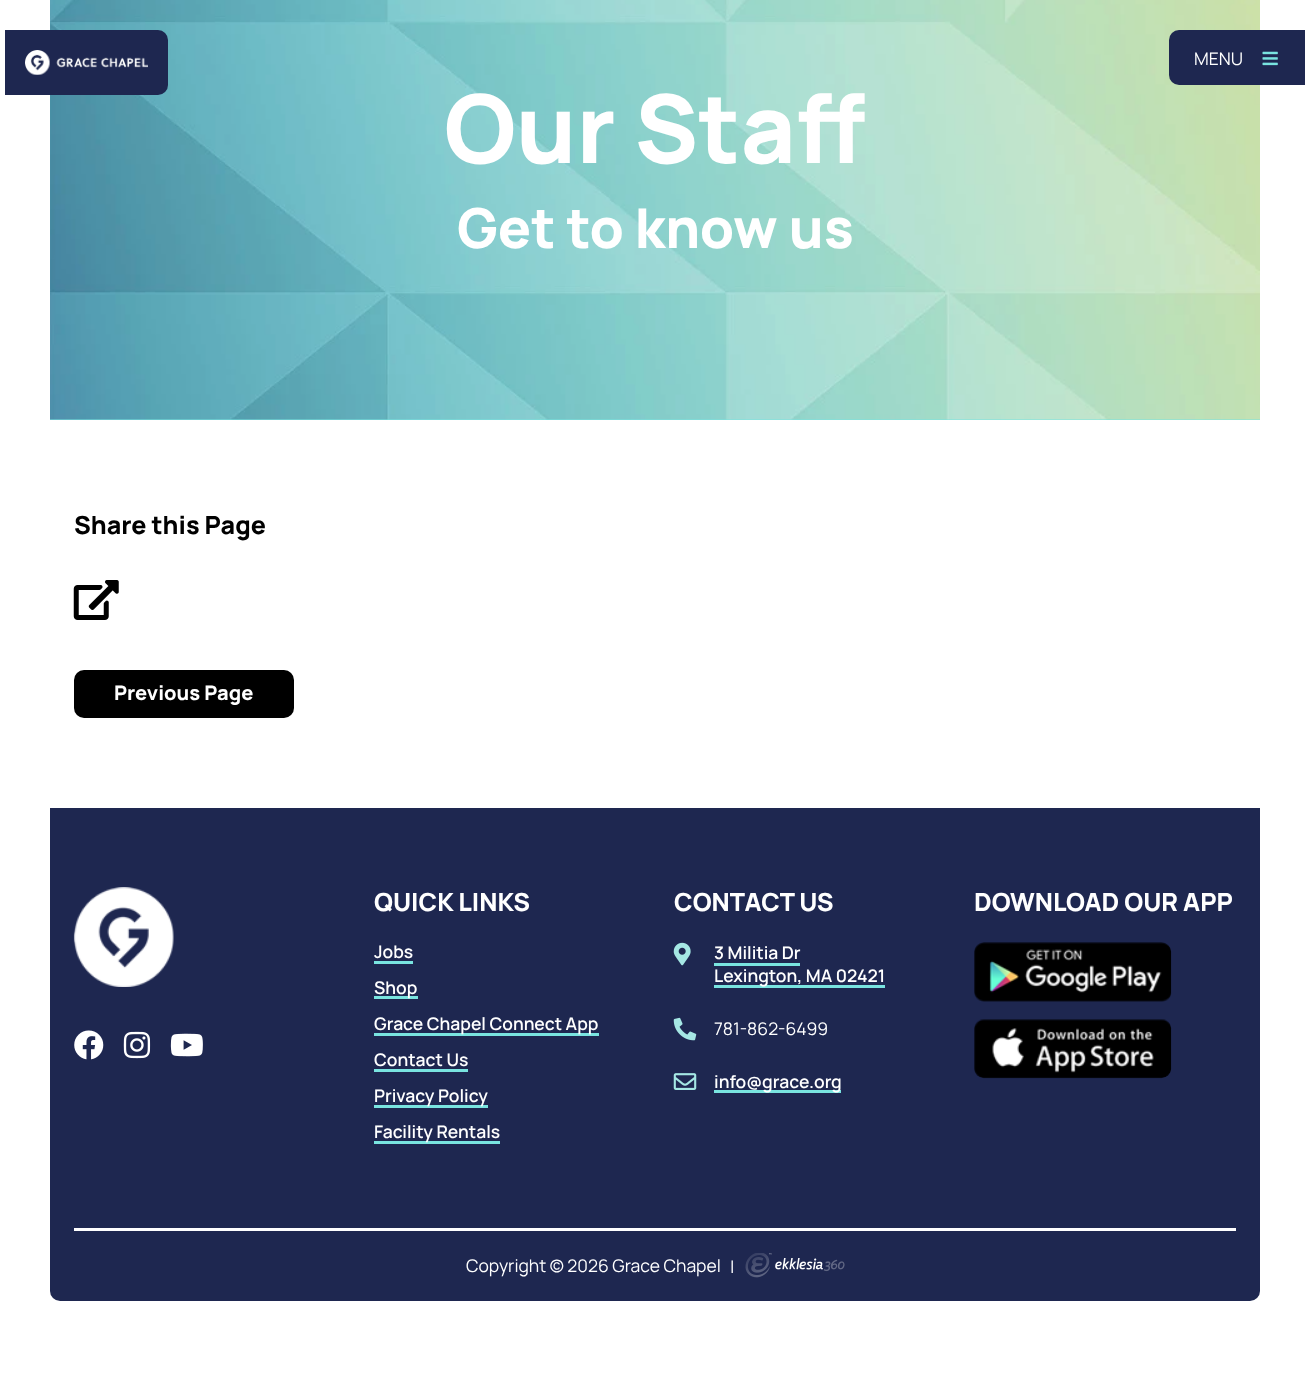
(async () => {
  const canvas = document.querySelector("canvas");
  canvas.width = 1309;
  canvas.height = 1389;
  const ctx = canvas.getContext("2d");
  ctx.miterLimit = 4;
  ctx.fontKerning = "normal";
  async function loadImage(src) {
    const img = new Image();
    img.src = src;
    await img.decode();
    return img;
  }

  ctx.fillStyle = "#ffffff";
  ctx.fillRect(0, 0, 1309, 1389);
  ctx.fillStyle = "#79e4e0";
  ctx.fillRect(50, 419, 1210, 1);
  ctx.drawImage(await loadImage("img/3.png"), 50, 0, 1210, 420);
  ctx.fillStyle = "#1e2750";
  ctx.beginPath();
  ctx.roundRect(5, 30, 163, 65, [0, 10, 10, 0]);
  ctx.fill();
  ctx.drawImage(await loadImage("img/1.png"), 25, 50, 123, 25);
  ctx.beginPath();
  ctx.roundRect(1169, 30, 136, 55, [10, 0, 0, 10]);
  ctx.fill();
  ctx.drawImage(await loadImage("img/2.png"), 1262, 51, 16, 15);
  ctx.drawImage(await loadImage("img/4.png"), 73, 580, 46, 40);
  ctx.fillStyle = "#000000";
  ctx.beginPath();
  ctx.roundRect(74, 670, 220, 48, 10);
  ctx.fill();
  ctx.fillStyle = "#1e2750";
  ctx.beginPath();
  ctx.roundRect(50, 808, 1210, 493, [0, 0, 10, 10]);
  ctx.fill();
  ctx.drawImage(await loadImage("img/5.png"), 73, 887, 101, 100);
  ctx.drawImage(await loadImage("img/6.png"), 74, 1030, 30, 30);
  ctx.drawImage(await loadImage("img/7.png"), 123, 1031, 28, 28);
  ctx.drawImage(await loadImage("img/8.png"), 170, 1033, 33, 24);
  for (const [x, y, w, h, color] of [
    [374, 961, 39, 3, "#79e4e0"],
    [374, 996, 44, 3, "#79e4e0"],
    [374, 1033, 225, 3, "#79e4e0"],
    [374, 1069, 94, 3, "#79e4e0"],
    [374, 1105, 114, 3, "#79e4e0"],
    [374, 1141, 126, 3, "#79e4e0"],
  ]) {
    ctx.fillStyle = color;
    ctx.fillRect(x, y, w, h);
  }
  ctx.drawImage(await loadImage("img/9.png"), 673, 942, 18, 24);
  ctx.fillRect(714, 963, 86, 3);
  ctx.fillRect(714, 985, 171, 3);
  ctx.drawImage(await loadImage("img/10.png"), 673, 1017, 24, 24);
  ctx.drawImage(await loadImage("img/11.png"), 673, 1073, 24, 17);
  ctx.fillRect(714, 1090, 127, 3);
  ctx.drawImage(await loadImage("img/12.png"), 974, 942, 198, 60);
  ctx.drawImage(await loadImage("img/13.png"), 974, 1019, 198, 60);
  ctx.fillStyle = "#ffffff";
  ctx.fillRect(74, 1228, 1162, 3);
  ctx.drawImage(await loadImage("img/14.png"), 745, 1253, 100, 25);
  ctx.font = "17.5px Manrope";
  ctx.fillText("MENU", 1194, 65);
  ctx.font = "800 95px Manrope";
  ctx.fillText("Our Staff", 444, 163);
  ctx.font = "800 55px Manrope";
  ctx.fillText("Get to know us", 457, 248);
  ctx.font = "800 25px Manrope";
  ctx.fillStyle = "#000000";
  ctx.fillText("Share this Page", 74, 534);
  ctx.font = "800 20px Manrope";
  ctx.fillStyle = "#ffffff";
  ctx.fillText("Previous Page", 114, 700);
  ctx.font = "800 25px Manrope";
  ctx.fillText("QUICK LINKS", 374, 911);
  ctx.font = "600 17.5px Manrope";
  for (const [text, x, y] of [
    ["Jobs", 374, 958],
    ["Shop", 374, 994],
    ["Grace Chapel Connect App", 374, 1030],
    ["Contact Us", 374, 1066],
    ["Privacy Policy", 374, 1102],
    ["Facility Rentals", 374, 1138],
  ]) {
    ctx.fillText(text, x, y);
  }
  ctx.font = "800 25px Manrope";
  ctx.fillText("CONTACT US", 674, 911);
  ctx.font = "600 17.5px Manrope";
  ctx.fillText("3 Militia Dr", 714, 959);
  ctx.fillText("Lexington, MA 02421", 714, 982);
  ctx.font = "17.5px Manrope";
  ctx.fillText("781-862-6499", 714, 1035);
  ctx.font = "600 17.5px Manrope";
  ctx.fillText("info@grace.org", 714, 1088);
  ctx.font = "800 25px Manrope";
  ctx.fillText("DOWNLOAD OUR APP", 974, 911);
  ctx.font = "17.5px Manrope";
  ctx.fillText("Copyright © 2026 Grace Chapel", 466, 1272);
  ctx.fillText("|", 730, 1273);
})();
